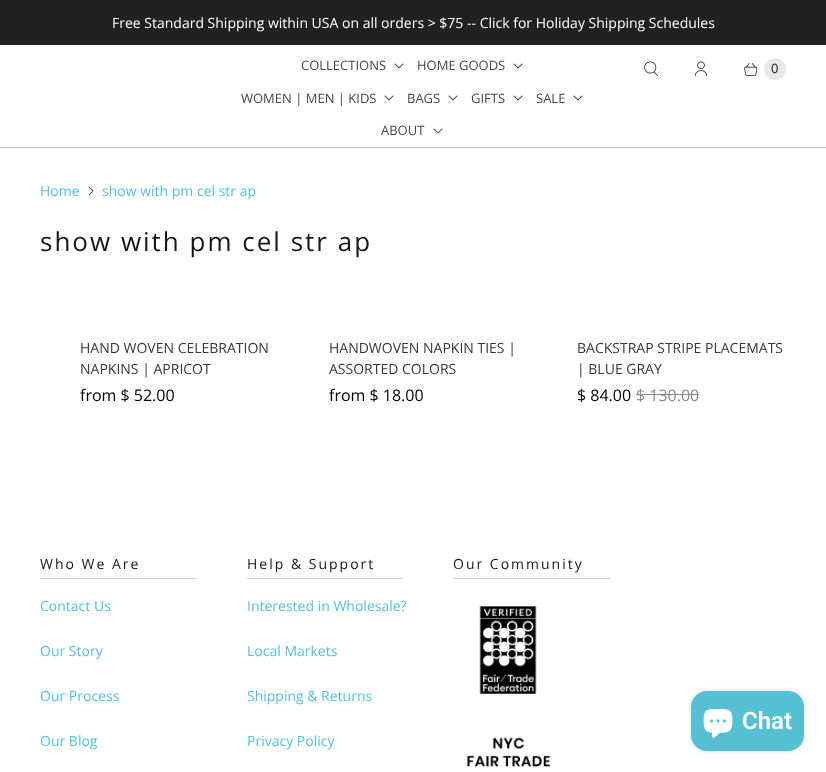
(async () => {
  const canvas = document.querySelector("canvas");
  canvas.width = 826;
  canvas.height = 772;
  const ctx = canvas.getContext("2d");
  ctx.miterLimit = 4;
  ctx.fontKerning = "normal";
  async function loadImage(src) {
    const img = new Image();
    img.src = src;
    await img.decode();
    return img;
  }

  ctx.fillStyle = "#ffffff";
  ctx.fillRect(0, 0, 826, 772);
  ctx.fillStyle = "#212121";
  ctx.fillRect(0, 0, 826, 45);
  ctx.fillStyle = "#bbbbbb";
  ctx.fillRect(0, 147, 826, 1);
  ctx.drawImage(await loadImage("img/1.png"), 394, 63, 10, 6);
  ctx.drawImage(await loadImage("img/1.png"), 513, 63, 10, 6);
  ctx.drawImage(await loadImage("img/1.png"), 384, 95, 10, 6);
  ctx.drawImage(await loadImage("img/1.png"), 448, 95, 10, 6);
  ctx.drawImage(await loadImage("img/1.png"), 513, 95, 10, 6);
  ctx.drawImage(await loadImage("img/1.png"), 573, 95, 10, 6);
  ctx.drawImage(await loadImage("img/1.png"), 433, 128, 10, 6);
  ctx.drawImage(await loadImage("img/2.png"), 644, 61, 15, 16);
  ctx.drawImage(await loadImage("img/3.png"), 695, 61, 12, 16);
  ctx.drawImage(await loadImage("img/4.png"), 744, 63, 14, 13);
  ctx.fillStyle = "#e8e8e8";
  ctx.beginPath();
  ctx.arc(775, 69, 11, 0, Math.PI * 2);
  ctx.fill();
  ctx.drawImage(await loadImage("img/5.png"), 88, 186, 6, 10);
  for (const [x, y, w, h, color] of [
    [636, 394, 63, 1, "#8b8b8e"],
    [40, 578, 157, 1, "#cccccc"],
    [247, 578, 156, 1, "#cccccc"],
    [453, 578, 157, 1, "#cccccc"],
  ]) {
    ctx.fillStyle = color;
    ctx.fillRect(x, y, w, h);
  }
  ctx.drawImage(await loadImage("img/6.png"), 479, 606, 58, 88);
  ctx.drawImage(await loadImage("img/7.png"), 466, 737, 85, 30);
  ctx.fillStyle = "rgba(0, 0, 0, 0.15)";
  ctx.filter = "blur(2.5px)";
  ctx.beginPath();
  ctx.roundRect(691, 691, 113, 60, 16);
  ctx.fill();
  ctx.filter = "none";
  ctx.fillStyle = "#55c0d4";
  ctx.beginPath();
  ctx.roundRect(691, 691, 113, 60, 16);
  ctx.fill();
  ctx.drawImage(await loadImage("img/8.png"), 703, 709, 30, 29);
  ctx.font = "14px Open Sans";
  ctx.fillStyle = "#ffffff";
  ctx.fillText("Free Standard Shipping within USA on all orders > $75 -- Click for Holiday Shipping Schedules", 112, 28);
  ctx.font = "13px Open Sans";
  ctx.fillStyle = "#45454a";
  for (const [text, x, y] of [
    ["COLLECTIONS", 301, 70],
    ["HOME GOODS", 417, 70],
    ["WOMEN | MEN | KIDS", 241, 103],
    ["BAGS", 407, 103],
    ["GIFTS", 471, 103],
    ["SALE", 536, 103],
    ["ABOUT", 381, 135],
  ]) {
    ctx.fillText(text, x, y);
  }
  ctx.fillStyle = "#16161d";
  ctx.fillText("0", 771, 73);
  ctx.font = "14px Open Sans";
  ctx.fillStyle = "#55c0d4";
  ctx.fillText("Home", 40, 196);
  ctx.fillText("show with pm cel str ap", 102, 196);
  ctx.letterSpacing = "2px";
  ctx.font = "26px Open Sans";
  ctx.fillStyle = "#16161d";
  ctx.fillText("show with pm cel str ap", 40, 251);
  ctx.letterSpacing = "0px";
  ctx.font = "14px Open Sans";
  ctx.fillStyle = "#363636";
  ctx.fillText("HAND WOVEN CELEBRATION", 80, 353);
  ctx.fillText("NAPKINS | APRICOT", 80, 374);
  ctx.font = "16px Open Sans";
  ctx.fillStyle = "#000000";
  ctx.fillText("from $ 52.00", 80, 401);
  ctx.font = "14px Open Sans";
  ctx.fillStyle = "#363636";
  ctx.fillText("HANDWOVEN NAPKIN TIES |", 329, 353);
  ctx.fillText("ASSORTED COLORS", 329, 374);
  ctx.font = "16px Open Sans";
  ctx.fillStyle = "#000000";
  ctx.fillText("from $ 18.00", 329, 401);
  ctx.font = "14px Open Sans";
  ctx.fillStyle = "#363636";
  ctx.fillText("BACKSTRAP STRIPE PLACEMATS", 577, 353);
  ctx.fillText("| BLUE GRAY", 577, 374);
  ctx.font = "16px Open Sans";
  ctx.fillStyle = "#000000";
  ctx.fillText("$ 84.00", 577, 401);
  ctx.fillStyle = "#8b8b8e";
  ctx.fillText("$ 130.00", 636, 401);
  ctx.letterSpacing = "2px";
  ctx.font = "14px Open Sans";
  ctx.fillStyle = "#16161d";
  ctx.fillText("Who We Are", 40, 569);
  ctx.letterSpacing = "0px";
  ctx.fillStyle = "#55c0d4";
  for (const [text, x, y] of [
    ["Contact Us", 40, 611],
    ["Our Story", 40, 656],
    ["Our Process", 40, 701],
    ["Our Blog", 40, 746],
  ]) {
    ctx.fillText(text, x, y);
  }
  ctx.letterSpacing = "2px";
  ctx.fillStyle = "#16161d";
  ctx.fillText("Help & Support", 247, 569);
  ctx.letterSpacing = "0px";
  ctx.fillStyle = "#55c0d4";
  for (const [text, x, y] of [
    ["Interested in Wholesale?", 247, 611],
    ["Local Markets", 247, 656],
    ["Shipping & Returns", 247, 701],
    ["Privacy Policy", 247, 746],
  ]) {
    ctx.fillText(text, x, y);
  }
  ctx.letterSpacing = "2px";
  ctx.fillStyle = "#16161d";
  ctx.fillText("Our Community", 453, 569);
  ctx.letterSpacing = "0px";
  ctx.font = "600 24px Roboto";
  ctx.fillStyle = "#ffffff";
  ctx.fillText("Chat", 742, 729);
})();
